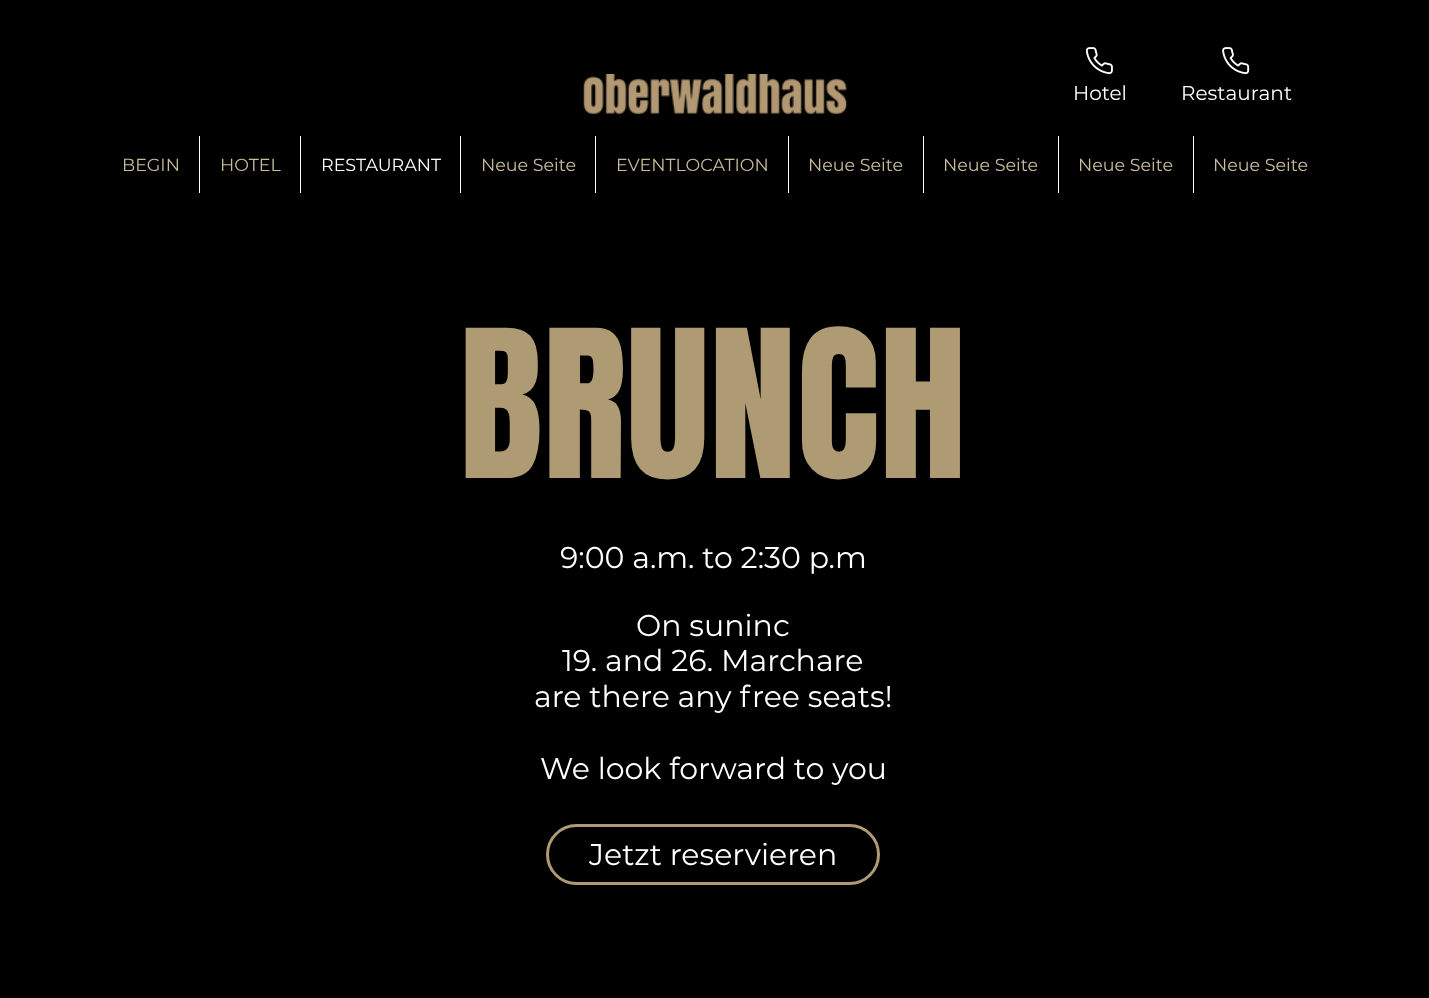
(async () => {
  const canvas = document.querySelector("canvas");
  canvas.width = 1429;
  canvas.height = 998;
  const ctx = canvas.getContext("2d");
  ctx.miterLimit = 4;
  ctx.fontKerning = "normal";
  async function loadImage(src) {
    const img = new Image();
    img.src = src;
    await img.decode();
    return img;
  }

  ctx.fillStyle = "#000000";
  ctx.fillRect(0, 0, 1429, 998);
  ctx.drawImage(await loadImage("img/1.png"), 1085, 47, 28, 28);
  ctx.drawImage(await loadImage("img/2.png"), 1222, 47, 28, 28);
  ctx.drawImage(await loadImage("img/3.png"), 583, 74, 264, 40);
  for (const [x, y, w, h, color] of [
    [199, 136, 1, 57, "#ffffff"],
    [300, 136, 1, 57, "#ffffff"],
    [460, 136, 1, 57, "#ffffff"],
    [595, 136, 1, 57, "#ffffff"],
    [788, 136, 1, 57, "#ffffff"],
    [923, 136, 1, 57, "#ffffff"],
    [1058, 136, 1, 57, "#ffffff"],
    [1193, 136, 1, 57, "#ffffff"],
  ]) {
    ctx.fillStyle = color;
    ctx.fillRect(x, y, w, h);
  }
  ctx.beginPath();
  ctx.roundRect(547.5, 825.5, 331, 58, 29);
  ctx.strokeStyle = "#ae9a73";
  ctx.lineWidth = 3;
  ctx.stroke();
  ctx.font = "20px Montserrat";
  ctx.fillText("Hotel", 1073, 100);
  ctx.fillText("Restaurant", 1181, 100);
  ctx.font = "17.5px Montserrat";
  ctx.fillStyle = "#c9bd9e";
  ctx.fillText("BEGIN", 122, 171);
  ctx.fillText("HOTEL", 220, 171);
  ctx.fillStyle = "#ffffff";
  ctx.fillText("RESTAURANT", 321, 171);
  ctx.fillStyle = "#c9bd9e";
  for (const [text, x, y] of [
    ["Neue Seite", 481, 171],
    ["EVENTLOCATION", 616, 171],
    ["Neue Seite", 808, 171],
    ["Neue Seite", 943, 171],
    ["Neue Seite", 1078, 171],
    ["Neue Seite", 1213, 171],
  ]) {
    ctx.fillText(text, x, y);
  }
  ctx.font = "175px Anton";
  ctx.fillStyle = "#ae9a73";
  ctx.fillText("BRUNCH", 459, 478);
  ctx.font = "30px Montserrat";
  ctx.fillStyle = "#ffffff";
  for (const [text, x, y] of [
    ["9:00 a.m. to 2:30 p.m", 560, 568],
    ["On suninc", 636, 636],
    ["19. and 26. Marchare", 562, 671],
    ["are there any free seats!", 534, 707],
    ["We look forward to you", 540, 779],
    ["Jetzt reservieren", 589, 865],
  ]) {
    ctx.fillText(text, x, y);
  }
})();
